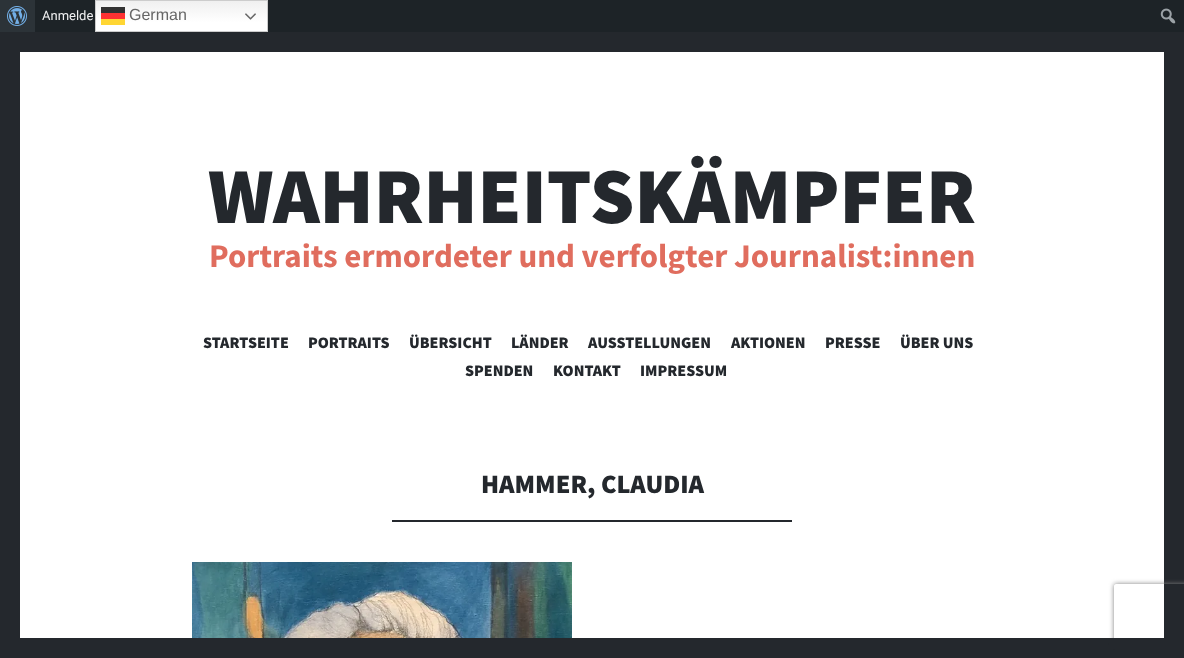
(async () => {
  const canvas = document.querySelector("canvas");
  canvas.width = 1184;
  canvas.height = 658;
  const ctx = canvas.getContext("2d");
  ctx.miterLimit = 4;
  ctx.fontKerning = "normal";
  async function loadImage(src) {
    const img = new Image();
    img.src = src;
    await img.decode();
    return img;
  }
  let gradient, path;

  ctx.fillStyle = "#24282d";
  ctx.fillRect(0, 0, 1184, 658);
  ctx.fillStyle = "#1d2327";
  ctx.fillRect(35, 0, 1149, 32);
  ctx.fillStyle = "#2c3338";
  ctx.fillRect(0, 0, 35, 32);
  ctx.drawImage(await loadImage("img/1.png"), 7, 6, 20, 20);
  ctx.drawImage(await loadImage("img/2.png"), 1160, 8, 16, 16);
  gradient = ctx.createLinearGradient(182, 0, 182, 32);
  gradient.addColorStop(0, "#efefef");
  gradient.addColorStop(0.7, "#ffffff");
  ctx.fillStyle = gradient;
  ctx.fillRect(96, 1, 171, 30);
  gradient = ctx.createLinearGradient(182, 0, 182, 32);
  gradient.addColorStop(0, "#fc3030");
  gradient.addColorStop(0.7, "#ff3333");
  ctx.fillStyle = gradient;
  ctx.fillRect(101, 13, 24, 6);
  gradient = ctx.createLinearGradient(182, 0, 182, 32);
  gradient.addColorStop(0, "#303030");
  gradient.addColorStop(0.7, "#333333");
  ctx.fillStyle = gradient;
  ctx.fillRect(101, 7, 24, 6);
  ctx.strokeStyle = "#cccccc";
  ctx.strokeRect(95.5, 0.5, 172, 31);
  ctx.drawImage(await loadImage("img/3.png"), 245, 13, 11, 7);
  for (const [x, y, w, h, color] of [
    [101, 19, 24, 6, "#ffd633"],
    [20, 52, 1144, 586, "#ffffff"],
    [392, 520, 400, 2, "#24282d"],
  ]) {
    ctx.fillStyle = color;
    ctx.fillRect(x, y, w, h);
  }
  ctx.drawImage(await loadImage("img/4.png"), 192, 562, 380, 76);
  ctx.save();
  path = new Path2D("M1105 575H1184V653H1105ZM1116 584H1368C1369 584 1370 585 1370 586V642C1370 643 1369 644 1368 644H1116C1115 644 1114 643 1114 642V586C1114 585 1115 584 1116 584Z");
  ctx.clip(path, "evenodd");
  ctx.fillStyle = "#808080";
  ctx.filter = "blur(2.5px)";
  ctx.beginPath();
  ctx.roundRect(1114, 584, 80, 60, 2);
  ctx.fill();
  ctx.filter = "none";
  ctx.restore();
  ctx.fillRect(1109, 638, 75, 11);
  ctx.font = "13px Roboto";
  ctx.fillStyle = "#f0f0f1";
  ctx.fillText("Anmelde", 42, 20);
  ctx.font = "16px Liberation Sans";
  ctx.fillStyle = "#666666";
  ctx.fillText("German", 129, 20);
  ctx.font = "900 79.25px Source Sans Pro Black";
  ctx.fillStyle = "#24282d";
  ctx.fillText("WAHRHEITSKÄMPFER", 208, 223);
  ctx.font = "bold 33px Source Sans Pro";
  ctx.fillStyle = "#e06d5e";
  ctx.fillText("Portraits ermordeter und verfolgter Journalist:innen", 209, 267);
  ctx.font = "900 16px Source Sans Pro Black";
  ctx.fillStyle = "#24282d";
  for (const [text, x, y] of [
    ["STARTSEITE", 203, 348],
    ["PORTRAITS", 308, 348],
    ["ÜBERSICHT", 409, 348],
    ["LÄNDER", 511, 348],
    ["AUSSTELLUNGEN", 588, 348],
    ["AKTIONEN", 731, 348],
    ["PRESSE", 825, 348],
    ["ÜBER UNS", 900, 348],
    ["SPENDEN", 465, 376],
    ["KONTAKT", 553, 376],
    ["IMPRESSUM", 640, 376],
  ]) {
    ctx.fillText(text, x, y);
  }
  ctx.font = "900 26.5px Source Sans Pro Black";
  ctx.fillText("HAMMER, CLAUDIA", 481, 493);
})();
